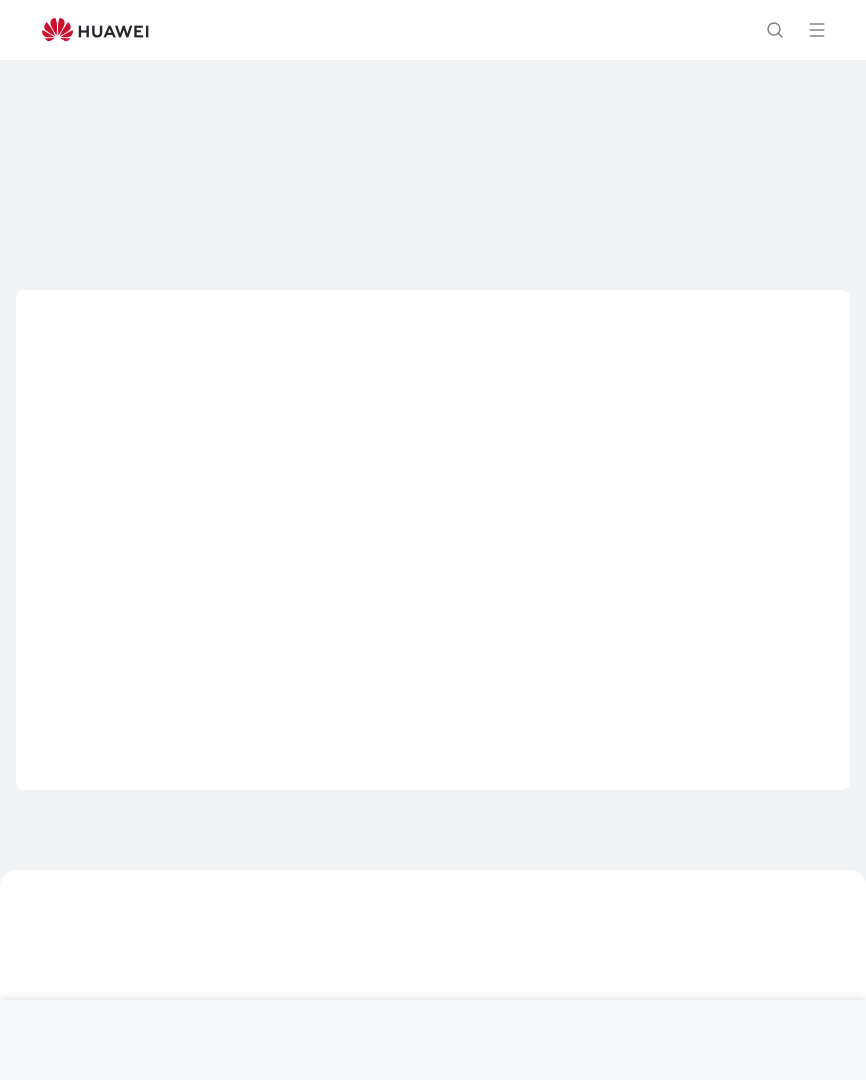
(async () => {
  const canvas = document.querySelector("canvas");
  canvas.width = 866;
  canvas.height = 1080;
  const ctx = canvas.getContext("2d");
  ctx.miterLimit = 4;
  ctx.fontKerning = "normal";
  async function loadImage(src) {
    const img = new Image();
    img.src = src;
    await img.decode();
    return img;
  }
  let path;

  ctx.fillStyle = "#f2f3f5";
  ctx.fillRect(0, 0, 866, 1080);
  ctx.fillStyle = "#ffffff";
  ctx.fillRect(0, 0, 866, 60);
  ctx.drawImage(await loadImage("img/1.png"), 42, 18, 107, 24);
  ctx.beginPath();
  ctx.arc(774, 29, 6, 0, Math.PI * 2);
  ctx.strokeStyle = "#7f7f7f";
  ctx.lineWidth = 1.5;
  ctx.stroke();
  path = new Path2D("M782 37L778.5 33.5");
  ctx.lineCap = "round";
  ctx.lineJoin = "round";
  ctx.stroke(path);
  ctx.drawImage(await loadImage("img/2.png"), 809, 23, 16, 14);
  ctx.beginPath();
  ctx.roundRect(16, 290, 834, 500, 8);
  ctx.fill();
  ctx.beginPath();
  ctx.roundRect(0, 870, 866, 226, 16);
  ctx.fill();
  ctx.fillStyle = "rgba(0, 0, 0, 0.1)";
  ctx.filter = "blur(3px)";
  ctx.beginPath();
  ctx.rect(0, 998, 866, 80);
  ctx.fill();
  ctx.filter = "none";
  ctx.fillStyle = "#f7f8f9";
  ctx.fillRect(0, 1000, 866, 80);
})();
